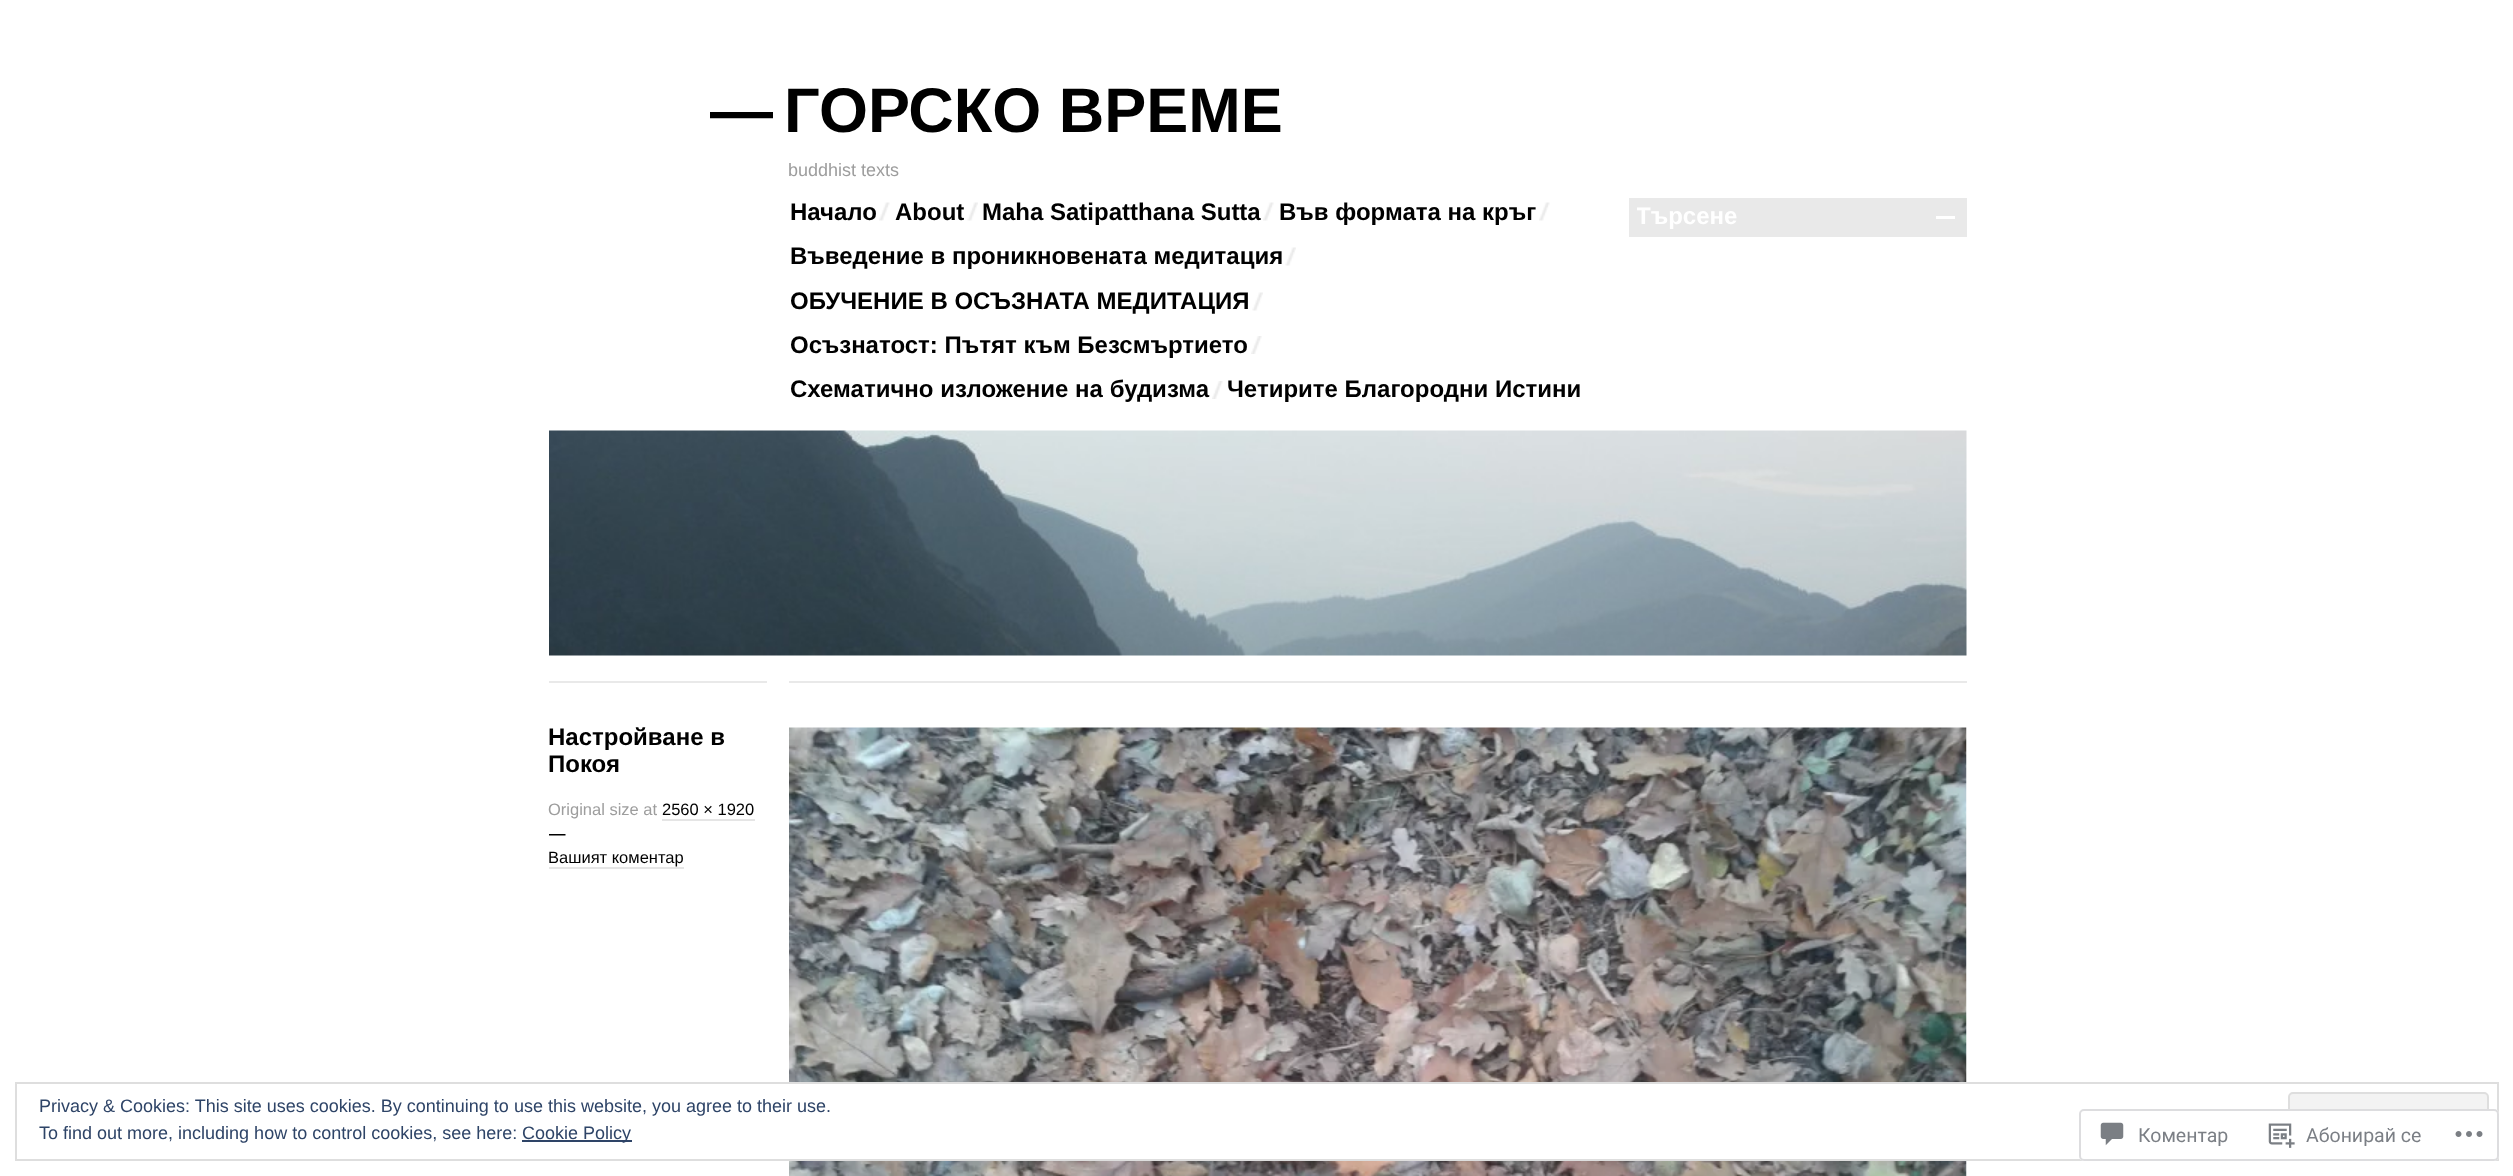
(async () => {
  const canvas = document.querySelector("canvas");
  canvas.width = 2513;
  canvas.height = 1176;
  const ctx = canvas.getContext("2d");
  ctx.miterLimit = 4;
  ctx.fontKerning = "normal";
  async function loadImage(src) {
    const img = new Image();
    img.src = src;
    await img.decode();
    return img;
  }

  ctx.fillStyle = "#ffffff";
  ctx.fillRect(0, 0, 2513, 1176);
  ctx.drawImage(await loadImage("img/1.png"), 879, 202, 11, 19);
  ctx.drawImage(await loadImage("img/2.png"), 967, 202, 11, 19);
  ctx.drawImage(await loadImage("img/3.png"), 1263, 202, 11, 19);
  ctx.drawImage(await loadImage("img/1.png"), 1539, 202, 11, 19);
  ctx.drawImage(await loadImage("img/4.png"), 1285, 247, 11, 19);
  ctx.drawImage(await loadImage("img/2.png"), 1252, 292, 11, 19);
  ctx.drawImage(await loadImage("img/5.png"), 1251, 336, 11, 18);
  ctx.drawImage(await loadImage("img/5.png"), 1212, 381, 11, 18);
  ctx.fillStyle = "#e9e9e9";
  ctx.fillRect(1629, 198, 338, 39);
  ctx.fillStyle = "#ffffff";
  ctx.fillRect(1936, 216, 19, 3);
  ctx.drawImage(await loadImage("img/6.png"), 549, 430, 1418, 226);
  ctx.fillStyle = "#e9e9e9";
  ctx.fillRect(549, 681, 218, 2);
  ctx.fillStyle = "#e5e5e5";
  ctx.fillRect(662, 819, 93, 2);
  ctx.drawImage(await loadImage("img/7.png"), 549, 834, 17, 2);
  ctx.fillRect(549, 867, 135, 2);
  ctx.fillStyle = "#e9e9e9";
  ctx.fillRect(789, 681, 1178, 2);
  ctx.drawImage(await loadImage("img/8.png"), 789, 727, 1178, 449);
  ctx.fillStyle = "#ffffff";
  ctx.fillRect(789, 1084, 1178, 75);
  ctx.strokeStyle = "#dedede";
  ctx.lineWidth = 2;
  ctx.strokeRect(16, 1083, 2482, 77);
  ctx.fillStyle = "#f3f3f3";
  ctx.beginPath();
  ctx.roundRect(2289, 1093, 199, 57, 4);
  ctx.fill();
  ctx.stroke();
  ctx.fillStyle = "#2e4467";
  ctx.fillRect(522, 1140, 110, 2);
  ctx.fillStyle = "rgba(255, 255, 255, 0.98)";
  ctx.beginPath();
  ctx.roundRect(2079, 1109, 420, 52, 5);
  ctx.fill();
  ctx.beginPath();
  ctx.roundRect(2080, 1110, 418, 50, 4);
  ctx.strokeStyle = "rgba(220, 220, 222, 0.98)";
  ctx.stroke();
  ctx.drawImage(await loadImage("img/9.png"), 2100, 1122, 24, 24);
  ctx.drawImage(await loadImage("img/10.png"), 2268, 1123, 27, 25);
  ctx.drawImage(await loadImage("img/11.png"), 2455, 1131, 28, 6);
  ctx.font = "bold 63px Liberation Sans";
  ctx.fillStyle = "#000000";
  ctx.fillText("—", 710, 132);
  ctx.fillText("ГОРСКО ВРЕМЕ", 784, 132);
  ctx.font = "18px Liberation Sans";
  ctx.fillStyle = "#9d9d9d";
  ctx.fillText("buddhist texts", 788, 176);
  ctx.font = "bold 24px Liberation Sans";
  ctx.fillStyle = "#000000";
  for (const [text, x, y] of [
    ["Начало", 790, 220],
    ["About", 895, 220],
    ["Maha Satipatthana Sutta", 982, 220],
    ["Във формата на кръг", 1279, 220],
    ["Въведение в проникновената медитация", 790, 264],
    ["ОБУЧЕНИЕ В ОСЪЗНАТА МЕДИТАЦИЯ", 790, 309],
    ["Осъзнатост: Пътят към Безсмъртието", 790, 353],
    ["Схематично изложение на будизма", 790, 397],
    ["Четирите Благородни Истини", 1227, 397],
  ]) {
    ctx.fillText(text, x, y);
  }
  ctx.save();
  ctx.beginPath();
  ctx.rect(1637, 204, 286, 27);
  ctx.clip();
  ctx.fillStyle = "#ffffff";
  ctx.fillText("Търсене", 1636, 224);
  ctx.restore();
  ctx.fillText("Настройване в", 548, 745);
  ctx.fillText("Покоя", 548, 772);
  ctx.font = "16.5px Liberation Sans";
  ctx.fillStyle = "#9d9d9d";
  ctx.fillText("Original size at", 548, 815);
  ctx.fillStyle = "#000000";
  ctx.fillText("2560 × 1920", 662, 815);
  ctx.fillText("Вашият коментар", 548, 863);
  ctx.font = "18px Liberation Sans";
  ctx.fillStyle = "#2e4467";
  for (const [text, x, y] of [
    ["Privacy & Cookies: This site uses cookies. By continuing to use this website, you agree to their use.", 39, 1112],
    ["To find out more, including how to control cookies, see here:", 39, 1139],
    ["Cookie Policy", 522, 1139],
  ]) {
    ctx.fillText(text, x, y);
  }
  ctx.font = "19.5px Roboto";
  ctx.fillStyle = "#7b7f85";
  ctx.fillText("Коментар", 2138, 1142);
  ctx.fillText("Абонирай се", 2306, 1142);
})();
